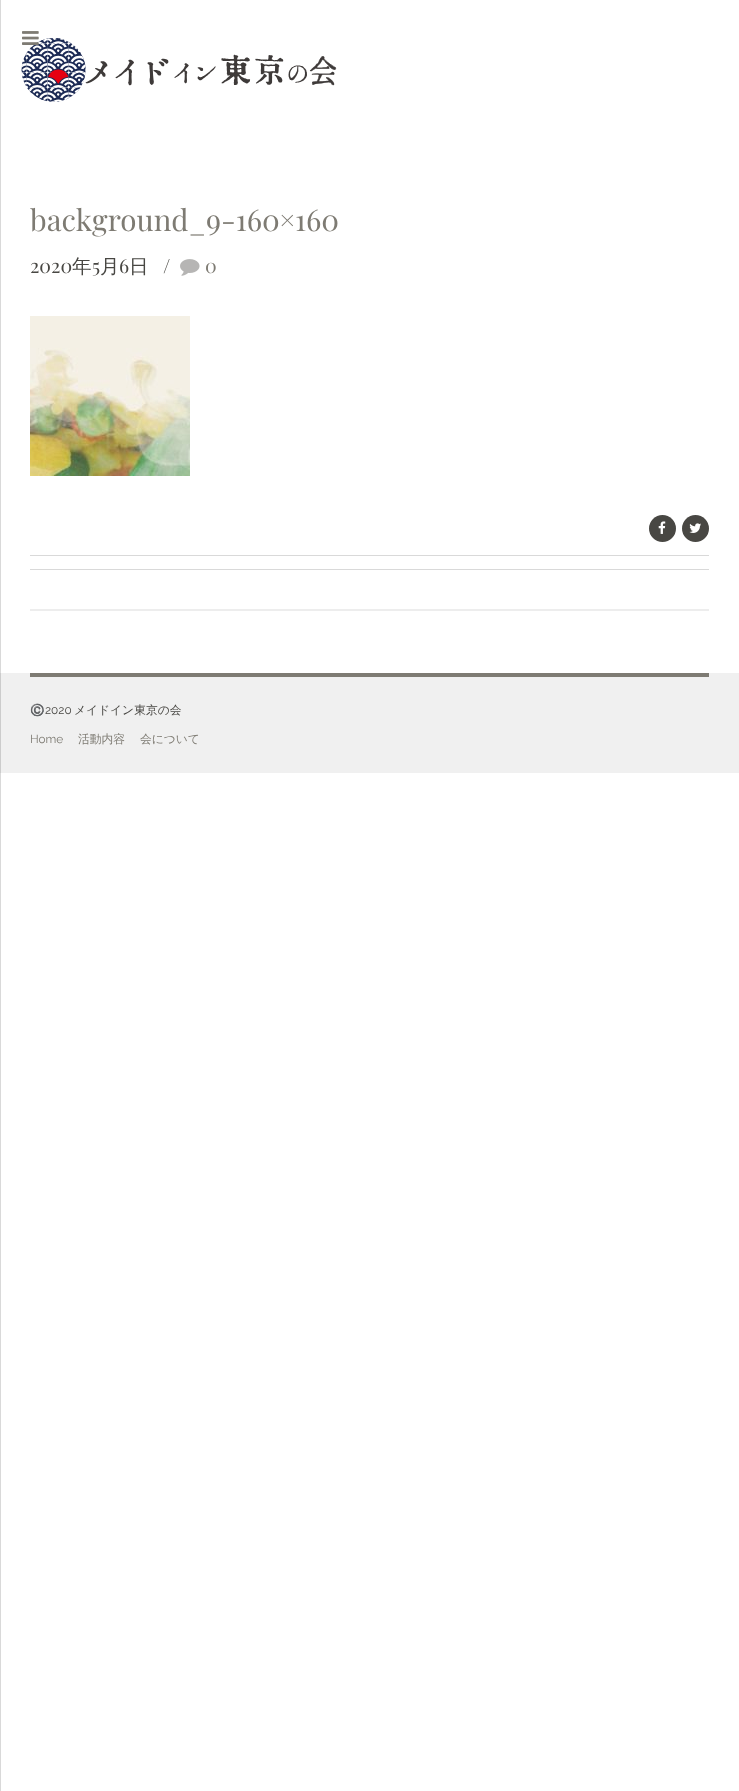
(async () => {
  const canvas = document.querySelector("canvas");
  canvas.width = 739;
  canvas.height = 1791;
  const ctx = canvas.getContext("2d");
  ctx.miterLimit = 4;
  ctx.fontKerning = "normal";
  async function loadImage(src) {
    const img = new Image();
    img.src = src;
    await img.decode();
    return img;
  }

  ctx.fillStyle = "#ffffff";
  ctx.fillRect(0, 0, 739, 1791);
  ctx.fillStyle = "#d9d9d9";
  ctx.fillRect(0, 0, 1, 1791);
  ctx.drawImage(await loadImage("img/2.png"), 21, 38, 316, 64);
  ctx.drawImage(await loadImage("img/1.png"), 22, 31, 17, 14);
  ctx.drawImage(await loadImage("img/3.png"), 180, 259, 20, 17);
  ctx.drawImage(await loadImage("img/4.png"), 30, 316, 160, 160);
  ctx.fillStyle = "#484743";
  ctx.beginPath();
  ctx.arc(662.5, 528.5, 13.5, 0, Math.PI * 2);
  ctx.fill();
  ctx.drawImage(await loadImage("img/5.png"), 658, 521, 8, 13);
  ctx.beginPath();
  ctx.arc(695.5, 528.5, 13.5, 0, Math.PI * 2);
  ctx.fill();
  ctx.drawImage(await loadImage("img/6.png"), 689, 523, 12, 10);
  for (const [x, y, w, h, color] of [
    [30, 555, 679, 1, "#d9d9d9"],
    [30, 569, 679, 1, "#d9d9d9"],
    [30, 609, 679, 2, "#ededed"],
    [1, 673, 738, 100, "#f0f0f0"],
    [0, 673, 1, 100, "#cccccc"],
    [30, 673, 679, 4, "#7e7b73"],
  ]) {
    ctx.fillStyle = color;
    ctx.fillRect(x, y, w, h);
  }
  ctx.font = "29.6px Playfair Display";
  ctx.fillText("background_9-160×160", 30, 231);
  ctx.font = "19.5px Playfair Display";
  ctx.fillStyle = "#484743";
  ctx.fillText("2020", 30, 273);
  ctx.font = "500 19.5px WenQuanYi Zen Hei";
  ctx.fillText("年", 72, 273);
  ctx.font = "19.5px Playfair Display";
  ctx.fillText("5", 92, 273);
  ctx.font = "500 19.5px WenQuanYi Zen Hei";
  ctx.fillText("月", 100, 273);
  ctx.font = "19.5px Playfair Display";
  ctx.fillText("6", 119, 273);
  ctx.font = "500 19.5px WenQuanYi Zen Hei";
  ctx.fillText("日", 129, 273);
  ctx.font = "19.5px Playfair Display";
  ctx.fillText("/", 163, 273);
  ctx.fillStyle = "#7e7b73";
  ctx.fillText("0", 205, 273);
  ctx.font = "11.75px Noto Color Emoji";
  ctx.fillStyle = "#484743";
  ctx.fillText("©️", 30, 714);
  ctx.font = "11.75px Raleway";
  ctx.fillText("2020", 45, 714);
  ctx.font = "500 11.75px WenQuanYi Zen Hei";
  ctx.fillText("メイドイン東京の会", 74, 714);
  ctx.font = "11.75px Raleway";
  ctx.fillStyle = "#7e7b73";
  ctx.fillText("Home", 30, 743);
  ctx.font = "500 11.75px WenQuanYi Zen Hei";
  ctx.fillText("活動内容", 78, 743);
  ctx.fillText("会について", 140, 743);
})();
